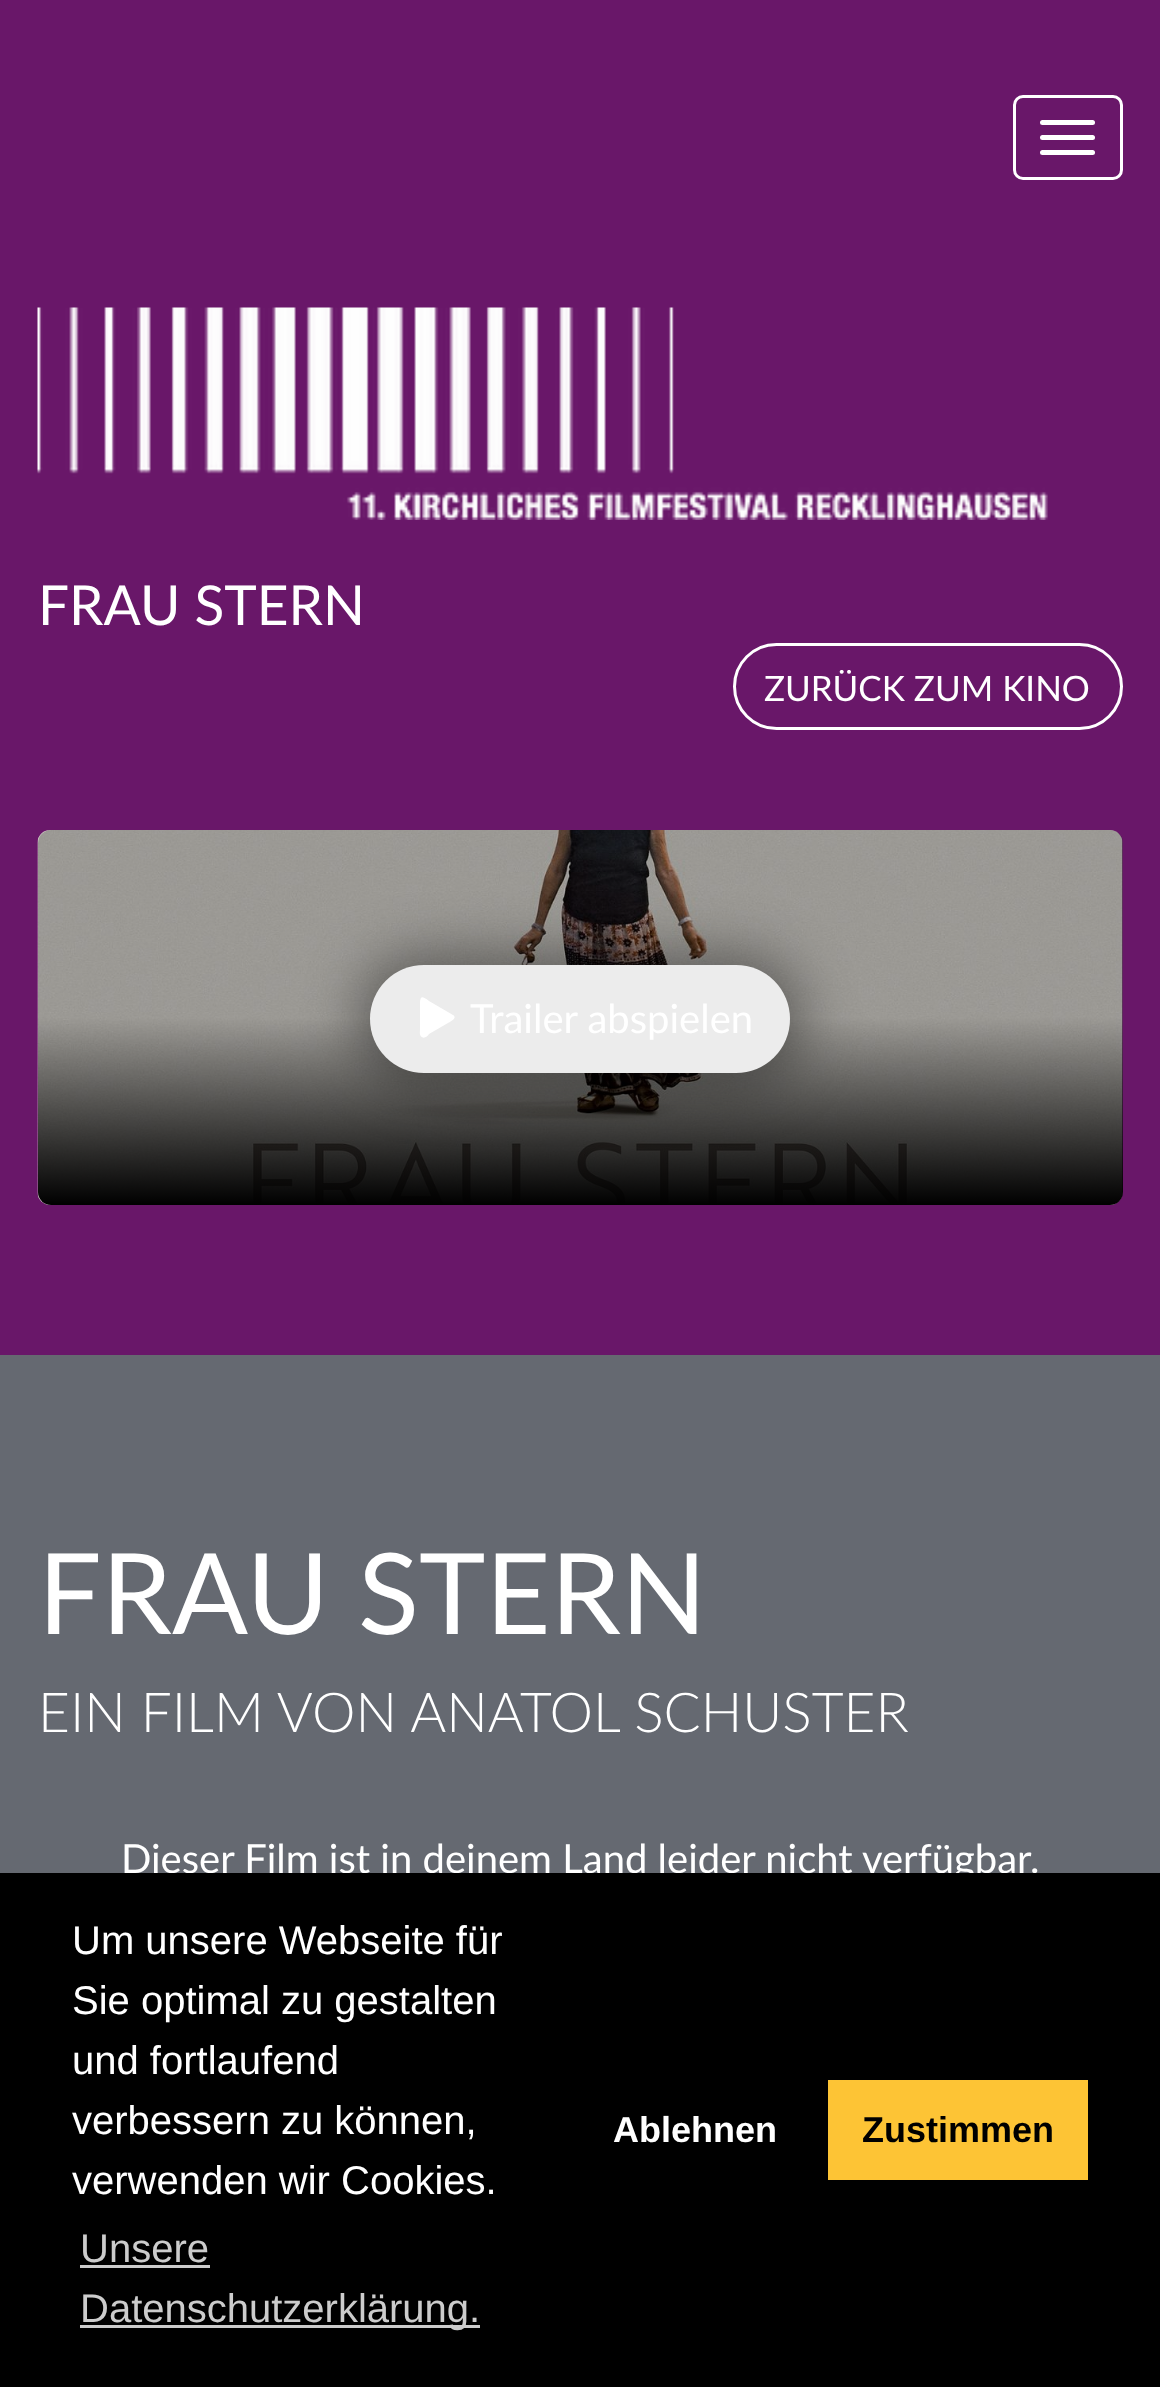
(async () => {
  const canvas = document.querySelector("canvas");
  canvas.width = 1160;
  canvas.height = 2387;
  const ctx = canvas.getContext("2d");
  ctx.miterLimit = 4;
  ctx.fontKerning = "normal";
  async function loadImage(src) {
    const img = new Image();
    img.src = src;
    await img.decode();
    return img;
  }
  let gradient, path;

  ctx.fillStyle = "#691769";
  ctx.fillRect(0, 0, 1160, 2387);
  ctx.beginPath();
  ctx.roundRect(1014.5, 96.5, 107, 82, 8.5);
  ctx.strokeStyle = "#ffffff";
  ctx.lineWidth = 3;
  ctx.stroke();
  ctx.fillStyle = "#ffffff";
  ctx.beginPath();
  ctx.roundRect(1040, 120, 55, 5, 2.5);
  ctx.fill();
  ctx.beginPath();
  ctx.roundRect(1040, 135, 55, 5, 2.5);
  ctx.fill();
  ctx.beginPath();
  ctx.roundRect(1040, 150, 55, 5, 2.5);
  ctx.fill();
  ctx.drawImage(await loadImage("img/1.png"), 37, 307, 1011, 213);
  ctx.beginPath();
  ctx.roundRect(734.5, 644.5, 387, 84, 42);
  ctx.stroke();
  ctx.drawImage(await loadImage("img/2.png"), 37, 830, 1086, 375);
  gradient = ctx.createLinearGradient(580, 830, 580, 1205);
  gradient.addColorStop(0.5, "rgba(0, 0, 0, 0.32)");
  gradient.addColorStop(1, "#000000");
  ctx.fillStyle = gradient;
  ctx.beginPath();
  ctx.roundRect(38, 830, 1085, 375, 13);
  ctx.fill();
  ctx.fillStyle = "rgba(0, 0, 0, 0.4)";
  ctx.filter = "blur(27.5px)";
  ctx.beginPath();
  ctx.roundRect(358, 953, 445, 132, 66);
  ctx.fill();
  ctx.filter = "none";
  ctx.fillStyle = "#ececec";
  ctx.beginPath();
  ctx.roundRect(370, 965, 420, 108, 54);
  ctx.fill();
  ctx.fillStyle = "#ffffff";
  path = new Path2D("M453 1015L429 1001C421 995 420 996 420 1006V1029C420 1031 419 1036 422 1037C424 1039 428 1036 429 1034L448 1023C450 1022 458 1018 453 1015Z");
  ctx.fill(path);
  ctx.fillStyle = "#656971";
  ctx.fillRect(0, 1355, 1160, 518);
  ctx.font = "55px Lato";
  ctx.fillStyle = "#ffffff";
  ctx.fillText("FRAU STERN", 38, 625);
  ctx.font = "35px Lato";
  ctx.fillText("ZURÜCK ZUM KINO", 764, 701);
  ctx.font = "40px Lato";
  ctx.fillText("Trailer abspielen", 470, 1033);
  ctx.font = "112.5px Lato";
  ctx.fillText("FRAU STERN", 38, 1634);
  ctx.font = "300 55px Lato";
  ctx.fillText("EIN FILM VON ANATOL SCHUSTER", 38, 1732);
  ctx.font = "40px Lato";
  ctx.fillText("Dieser Film ist in deinem Land leider nicht verfügbar.", 121, 1873);
  ctx.fillStyle = "#000000";
  ctx.fillRect(0, 1873, 1160, 514);
  ctx.font = "40px Liberation Sans";
  ctx.fillStyle = "#ffffff";
  for (const [text, x, y] of [
    ["Um unsere Webseite für", 72, 1954],
    ["Sie optimal zu gestalten", 72, 2014],
    ["und fortlaufend", 72, 2074],
    ["verbessern zu können,", 72, 2134],
    ["verwenden wir Cookies.", 72, 2194],
  ]) {
    ctx.fillText(text, x, y);
  }
  ctx.fillStyle = "#cccccc";
  ctx.fillText("Unsere", 80, 2262);
  ctx.fillRect(80, 2265, 130, 3);
  ctx.fillRect(80, 2325, 400, 3);
  ctx.fillText("Datenschutzerklärung.", 80, 2322);
  ctx.font = "bold 36px Liberation Sans";
  ctx.fillStyle = "#ffffff";
  ctx.fillText("Ablehnen", 613, 2142);
  ctx.fillStyle = "#fdc435";
  ctx.fillRect(828, 2080, 260, 100);
  ctx.fillStyle = "#000000";
  ctx.fillText("Zustimmen", 862, 2142);
})();
